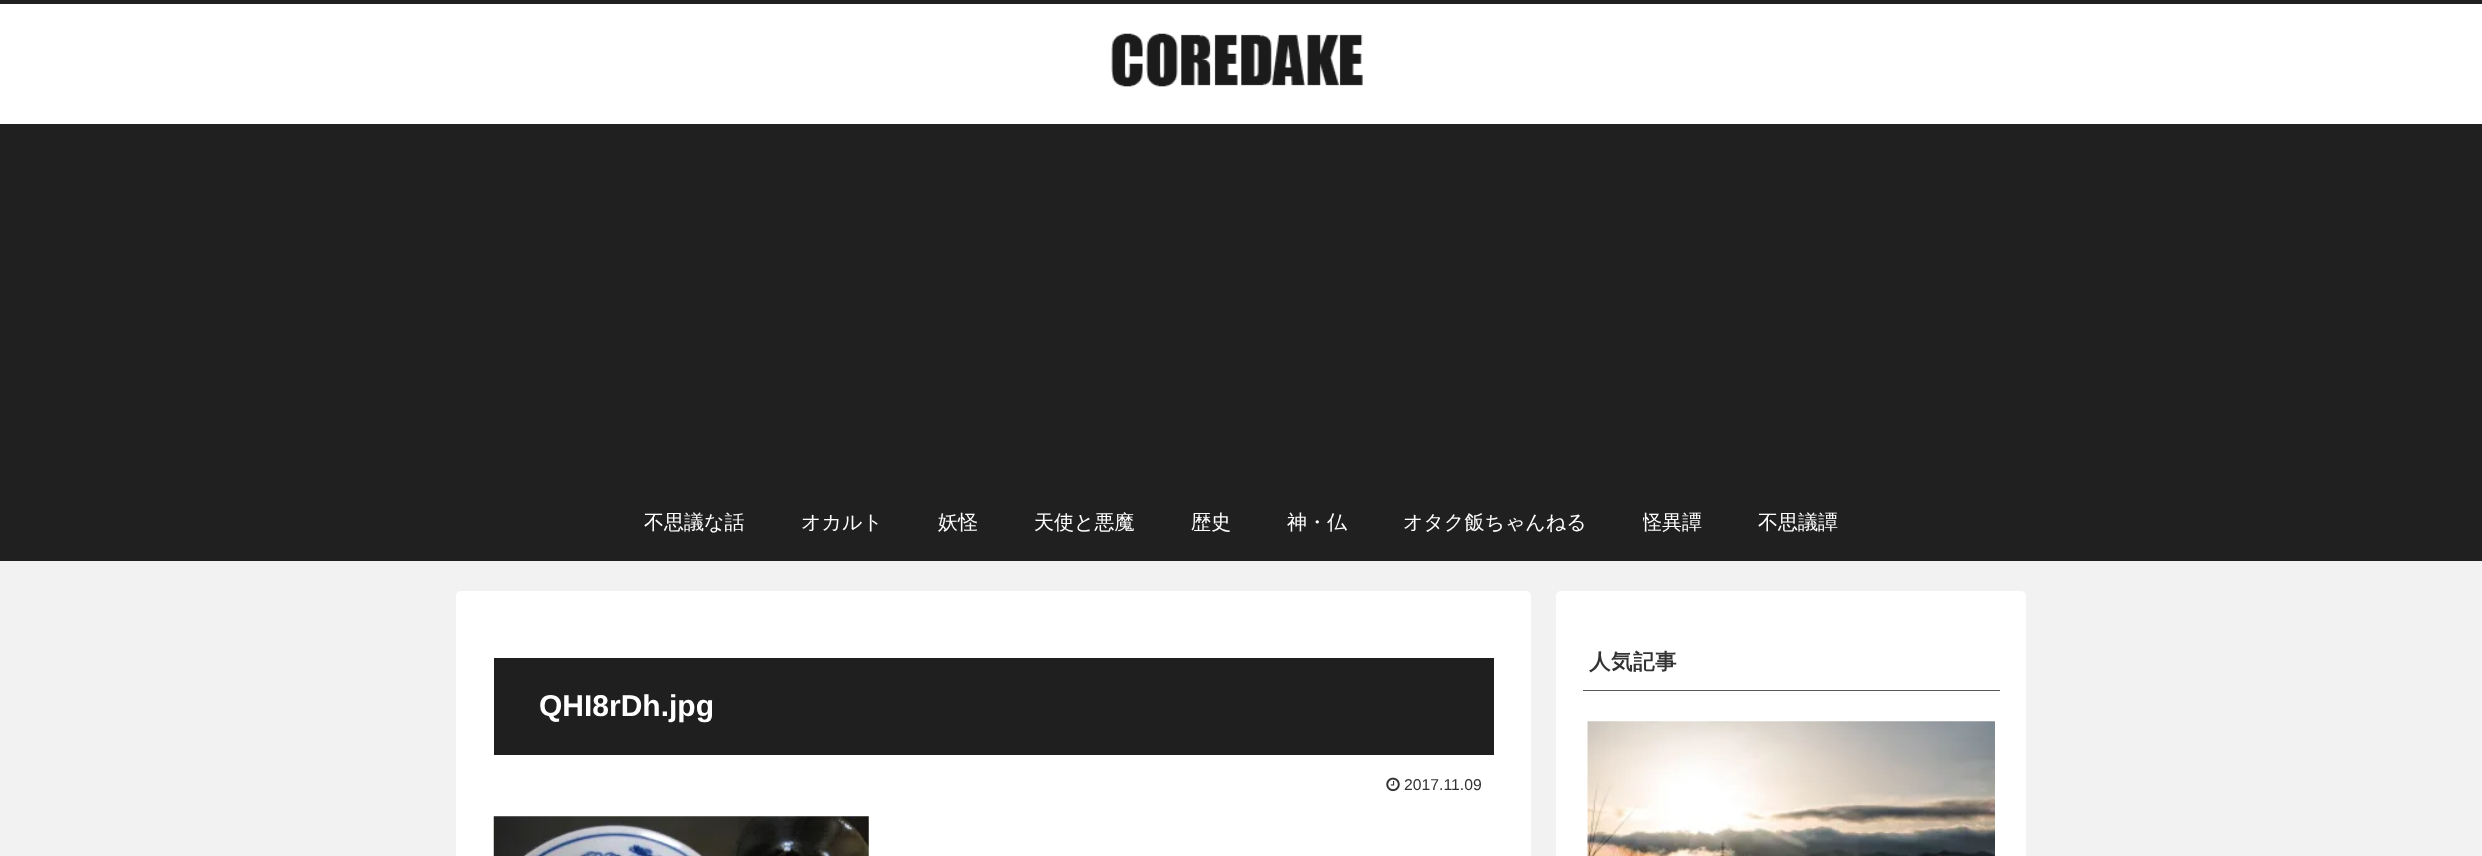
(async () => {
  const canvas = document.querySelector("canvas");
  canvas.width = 2482;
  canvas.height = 856;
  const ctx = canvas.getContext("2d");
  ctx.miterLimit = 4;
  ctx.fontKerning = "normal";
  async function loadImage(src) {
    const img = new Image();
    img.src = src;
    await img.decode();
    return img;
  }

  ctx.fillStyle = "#f2f2f2";
  ctx.fillRect(0, 0, 2482, 856);
  ctx.fillStyle = "#ffffff";
  ctx.fillRect(0, 4, 2482, 120);
  ctx.fillStyle = "#202020";
  ctx.fillRect(0, 0, 2482, 4);
  ctx.drawImage(await loadImage("img/1.png"), 1111, 33, 252, 54);
  ctx.fillRect(0, 124, 2482, 437);
  ctx.fillStyle = "#ffffff";
  ctx.beginPath();
  ctx.roundRect(1556, 591, 470, 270, 5);
  ctx.fill();
  ctx.fillStyle = "#595857";
  ctx.fillRect(1583, 690, 417, 1);
  ctx.drawImage(await loadImage("img/2.png"), 1587, 721, 408, 135);
  ctx.fillStyle = "#ffffff";
  ctx.beginPath();
  ctx.roundRect(456, 591, 1075, 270, 5);
  ctx.fill();
  ctx.fillStyle = "#1f1f1f";
  ctx.fillRect(494, 658, 1000, 97);
  ctx.drawImage(await loadImage("img/3.png"), 1386, 777, 14, 15);
  ctx.drawImage(await loadImage("img/4.png"), 493, 816, 376, 40);
  ctx.font = "500 20px WenQuanYi Zen Hei";
  ctx.fillStyle = "#ffffff";
  for (const [text, x, y] of [
    ["不思議な話", 644, 529],
    ["オカルト", 801, 529],
    ["妖怪", 938, 529],
    ["天使と悪魔", 1034, 529],
    ["歴史", 1191, 529],
    ["神・仏", 1287, 529],
    ["オタク飯ちゃんねる", 1403, 529],
  ]) {
    ctx.fillText(text, x, y);
  }
  ctx.save();
  ctx.beginPath();
  ctx.rect(1643, 506, 60, 35);
  ctx.clip();
  ctx.fillText("怪異譚", 1642, 529);
  ctx.restore();
  ctx.fillText("不思議譚", 1758, 529);
  ctx.letterSpacing = "0.5px";
  ctx.font = "bold 21.5px WenQuanYi Zen Hei";
  ctx.fillStyle = "#333333";
  ctx.fillText("人気記事", 1589, 669);
  ctx.letterSpacing = "0px";
  ctx.font = "bold 30px Liberation Sans";
  ctx.fillStyle = "#ffffff";
  ctx.fillText("QHI8rDh.jpg", 539, 716);
  ctx.font = "15.75px Liberation Sans";
  ctx.fillStyle = "#333333";
  ctx.fillText("2017.11.09", 1404, 790);
})();
